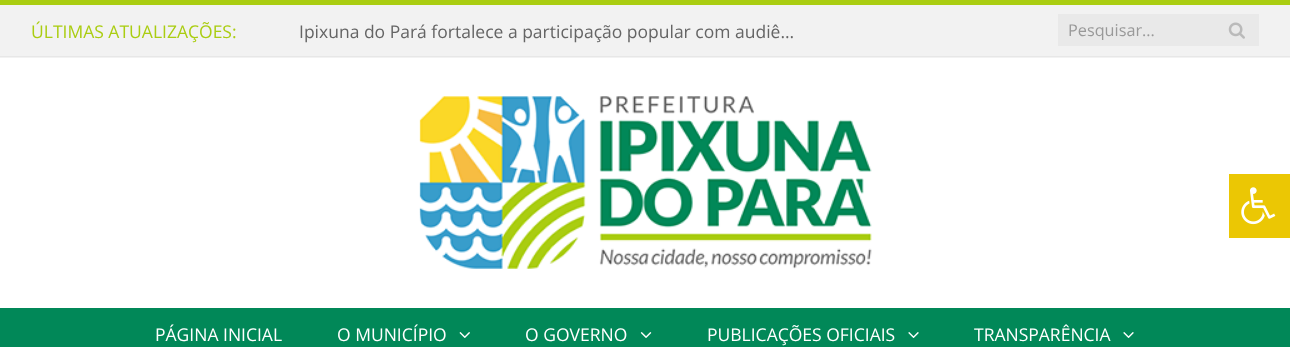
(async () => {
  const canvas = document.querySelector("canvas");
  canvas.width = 1290;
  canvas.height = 347;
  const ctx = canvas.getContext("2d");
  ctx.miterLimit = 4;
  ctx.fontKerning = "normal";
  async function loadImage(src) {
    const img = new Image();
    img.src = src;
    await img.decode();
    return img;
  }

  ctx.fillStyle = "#ffffff";
  ctx.fillRect(0, 0, 1290, 347);
  for (const [x, y, w, h, color] of [
    [0, 5, 1290, 53, "#f2f2f2"],
    [0, 0, 1290, 5, "#aacd11"],
    [0, 56, 1290, 1, "#e7e7e7"],
    [1058, 14, 201, 32, "#e9e9e9"],
  ]) {
    ctx.fillStyle = color;
    ctx.fillRect(x, y, w, h);
  }
  ctx.drawImage(await loadImage("img/1.png"), 1228, 22, 17, 17);
  ctx.drawImage(await loadImage("img/2.png"), 419, 96, 453, 173);
  ctx.fillStyle = "#018858";
  ctx.fillRect(0, 308, 1290, 39);
  ctx.drawImage(await loadImage("img/3.png"), 459, 332, 11, 6);
  ctx.drawImage(await loadImage("img/4.png"), 640, 332, 12, 6);
  ctx.drawImage(await loadImage("img/5.png"), 908, 332, 11, 6);
  ctx.drawImage(await loadImage("img/5.png"), 1123, 332, 11, 6);
  ctx.fillStyle = "#ebc704";
  ctx.fillRect(1229, 174, 61, 64);
  ctx.drawImage(await loadImage("img/6.png"), 1241, 187, 35, 38);
  ctx.font = "17.5px Open Sans";
  ctx.fillStyle = "#aacd11";
  ctx.fillText("ÚLTIMAS ATUALIZAÇÕES:", 31, 38);
  ctx.fillStyle = "#656565";
  ctx.fillText("Ipixuna do Pará fortalece a participação popular com audiê…", 299, 38);
  ctx.font = "16.25px Open Sans";
  ctx.fillStyle = "#999999";
  ctx.fillText("Pesquisar...", 1068, 36);
  ctx.font = "17.5px Open Sans";
  ctx.fillStyle = "#ffffff";
  for (const [text, x, y] of [
    ["PÁGINA INICIAL", 155, 341],
    ["O MUNICÍPIO", 337, 341],
    ["O GOVERNO", 525, 341],
    ["PUBLICAÇÕES OFICIAIS", 707, 341],
    ["TRANSPARÊNCIA", 974, 341],
  ]) {
    ctx.fillText(text, x, y);
  }
})();
